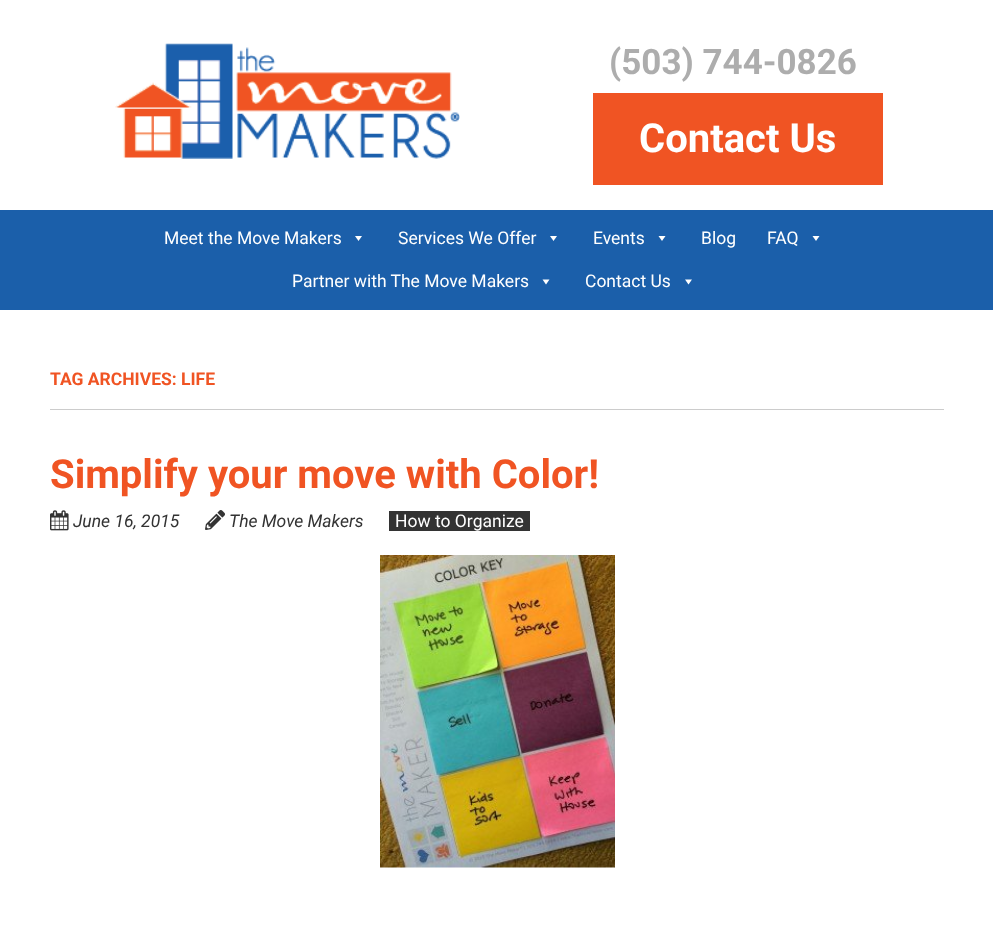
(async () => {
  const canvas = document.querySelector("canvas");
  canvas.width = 993;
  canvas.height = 934;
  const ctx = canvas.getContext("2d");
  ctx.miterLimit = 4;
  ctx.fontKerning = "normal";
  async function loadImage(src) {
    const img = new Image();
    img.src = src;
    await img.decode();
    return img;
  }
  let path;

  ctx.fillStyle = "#ffffff";
  ctx.fillRect(0, 0, 993, 934);
  ctx.drawImage(await loadImage("img/1.png"), 115, 43, 345, 116);
  ctx.fillStyle = "#f05423";
  ctx.fillRect(593, 93, 290, 92);
  ctx.fillStyle = "#1b5faa";
  ctx.fillRect(0, 210, 993, 100);
  ctx.fillStyle = "#ffffff";
  path = new Path2D("M362 236L358.5 241L355 236Z");
  ctx.fill(path);
  path = new Path2D("M557 236L553.5 241L550 236Z");
  ctx.fill(path);
  path = new Path2D("M665.5 236L662 241L658.5 236Z");
  ctx.fill(path);
  path = new Path2D("M819.5 236L816 241L812.5 236Z");
  ctx.fill(path);
  path = new Path2D("M549.5 279.5L546 284.5L542.5 279.5Z");
  ctx.fill(path);
  path = new Path2D("M692 279.5L688.5 284.5L685 279.5Z");
  ctx.fill(path);
  ctx.fillStyle = "#cccccc";
  ctx.fillRect(50, 409, 894, 1);
  ctx.drawImage(await loadImage("img/2.png"), 50, 510, 19, 21);
  ctx.drawImage(await loadImage("img/3.png"), 205, 510, 20, 20);
  ctx.fillStyle = "#333333";
  ctx.fillRect(389, 511, 141, 20);
  ctx.drawImage(await loadImage("img/4.png"), 380, 555, 235, 313);
  ctx.font = "bold 35px Roboto";
  ctx.fillStyle = "#adadad";
  ctx.fillText("(503) 744-0826", 609, 74);
  ctx.font = "bold 40px Roboto";
  ctx.fillStyle = "#ffffff";
  ctx.fillText("Contact Us", 639, 152);
  ctx.font = "17.5px Roboto";
  for (const [text, x, y] of [
    ["Meet the Move Makers", 164, 244],
    ["Services We Offer", 398, 244],
    ["Events", 593, 244],
    ["Blog", 701, 244],
    ["FAQ", 767, 244],
    ["Partner with The Move Makers", 292, 287],
    ["Contact Us", 585, 287],
  ]) {
    ctx.fillText(text, x, y);
  }
  ctx.font = "bold 17.5px Roboto";
  ctx.fillStyle = "#f05423";
  ctx.fillText("TAG ARCHIVES: LIFE", 50, 385);
  ctx.font = "bold 40px Roboto";
  ctx.fillText("Simplify your move with Color!", 50, 488);
  ctx.font = "italic 17.5px Roboto";
  ctx.fillStyle = "#333333";
  ctx.fillText("June 16, 2015", 73, 527);
  ctx.fillText("The Move Makers", 229, 527);
  ctx.font = "17.5px Roboto";
  ctx.fillStyle = "#ffffff";
  ctx.fillText("How to Organize", 395, 527);
})();
